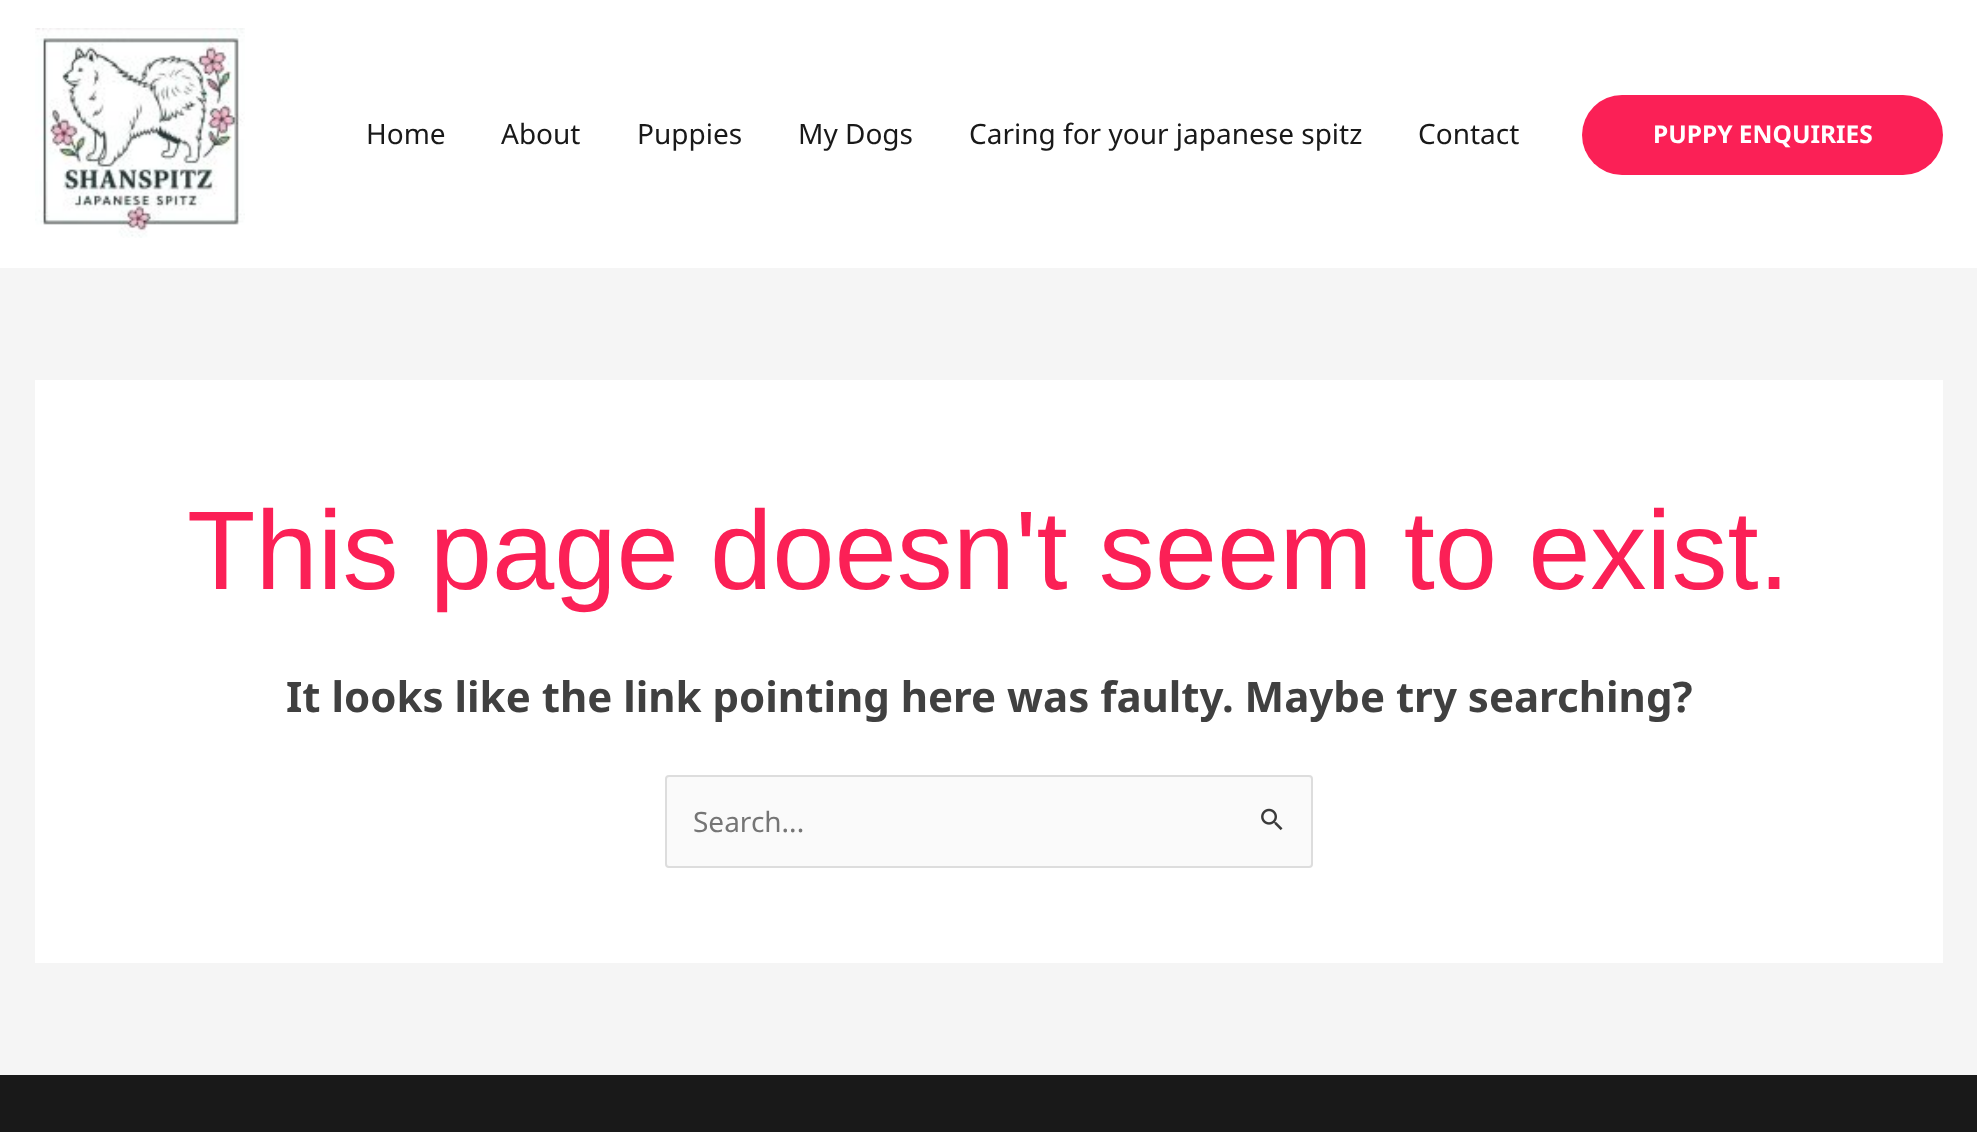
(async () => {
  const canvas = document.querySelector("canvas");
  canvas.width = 1977;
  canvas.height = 1132;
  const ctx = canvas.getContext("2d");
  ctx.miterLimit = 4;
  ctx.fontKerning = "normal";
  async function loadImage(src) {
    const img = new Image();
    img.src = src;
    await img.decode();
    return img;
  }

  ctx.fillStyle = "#f5f5f5";
  ctx.fillRect(0, 0, 1977, 1132);
  ctx.fillStyle = "#ffffff";
  ctx.fillRect(0, 0, 1977, 268);
  ctx.drawImage(await loadImage("img/1.png"), 35, 28, 210, 210);
  ctx.fillStyle = "#fb2056";
  ctx.beginPath();
  ctx.roundRect(1582, 95, 361, 80, 40);
  ctx.fill();
  ctx.fillStyle = "#ffffff";
  ctx.fillRect(35, 380, 1908, 583);
  ctx.fillStyle = "#fafafa";
  ctx.beginPath();
  ctx.roundRect(666, 776, 646, 91, 3);
  ctx.fill();
  ctx.strokeStyle = "#dddddd";
  ctx.lineWidth = 2;
  ctx.stroke();
  ctx.drawImage(await loadImage("img/2.png"), 1261, 808, 22, 23);
  ctx.fillStyle = "#191919";
  ctx.fillRect(0, 1075, 1977, 57);
  ctx.font = "28px Noto Sans";
  for (const [text, x, y] of [
    ["Home", 366, 144],
    ["About", 501, 144],
    ["Puppies", 637, 144],
    ["My Dogs", 798, 144],
    ["Caring for your japanese spitz", 969, 144],
    ["Contact", 1418, 144],
  ]) {
    ctx.fillText(text, x, y);
  }
  ctx.font = "bold 24.5px Noto Sans";
  ctx.fillStyle = "#ffffff";
  ctx.fillText("PUPPY ENQUIRIES", 1653, 143);
  ctx.font = "112px Liberation Sans";
  ctx.fillStyle = "#fb2056";
  ctx.fillText("This page doesn't seem to exist.", 187, 589);
  ctx.font = "bold 42px Noto Sans";
  ctx.fillStyle = "#404040";
  ctx.fillText("It looks like the link pointing here was faulty. Maybe try searching?", 286, 712);
  ctx.font = "28px Noto Sans";
  ctx.fillStyle = "#757575";
  ctx.fillText("Search...", 693, 832);
})();
